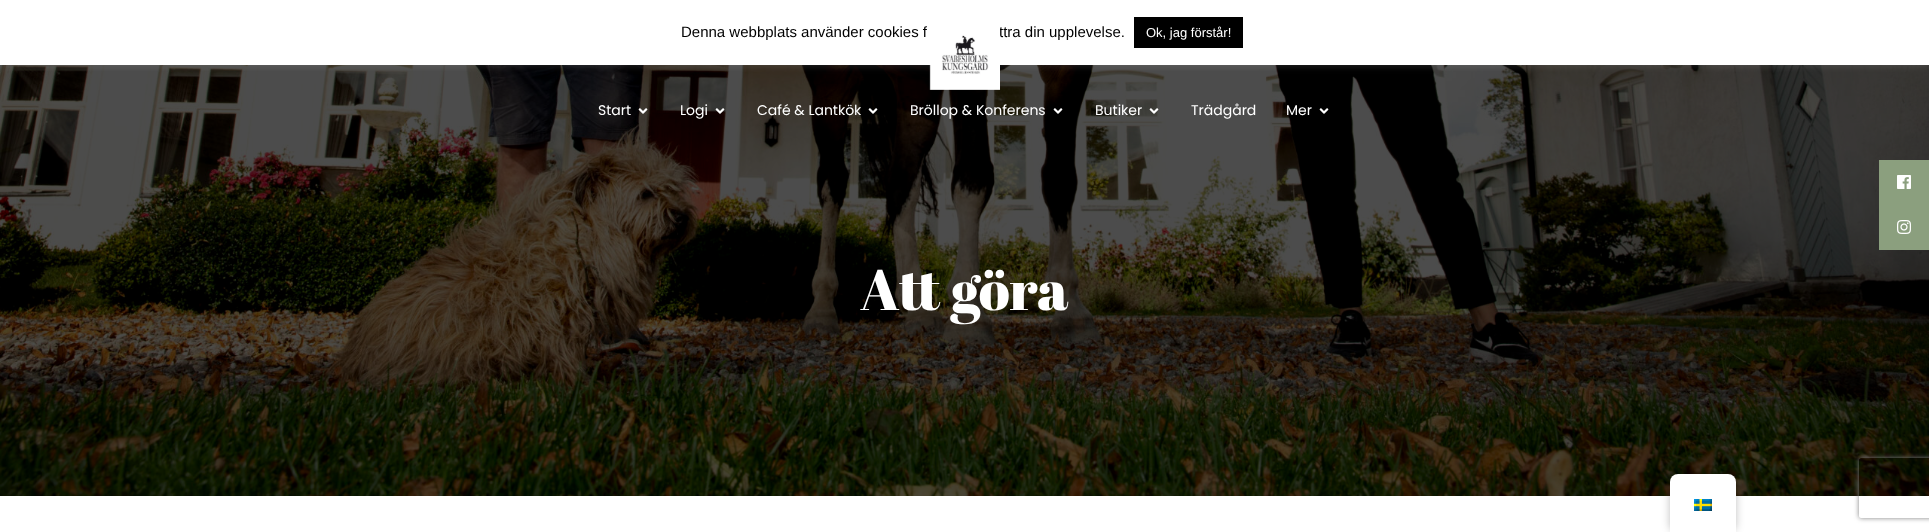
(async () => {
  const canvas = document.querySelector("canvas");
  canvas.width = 1929;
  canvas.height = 532;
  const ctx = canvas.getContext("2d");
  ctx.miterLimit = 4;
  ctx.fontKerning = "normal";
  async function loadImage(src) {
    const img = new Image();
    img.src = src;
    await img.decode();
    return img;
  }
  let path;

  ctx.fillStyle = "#ffffff";
  ctx.fillRect(0, 0, 1929, 532);
  ctx.drawImage(await loadImage("img/8.png"), 0, 65, 1929, 431);
  ctx.fillStyle = "rgba(172, 171, 171, 0.3)";
  ctx.filter = "blur(5px)";
  ctx.beginPath();
  ctx.rect(0, -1, 1929, 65);
  ctx.fill();
  ctx.filter = "none";
  ctx.fillStyle = "#ffffff";
  ctx.fillRect(0, 0, 1929, 65);
  ctx.fillStyle = "#000000";
  ctx.fillRect(1134, 17, 109, 31);
  ctx.drawImage(await loadImage("img/2.png"), 638, 108, 10, 6);
  ctx.drawImage(await loadImage("img/3.png"), 715, 108, 10, 6);
  ctx.drawImage(await loadImage("img/4.png"), 868, 108, 10, 6);
  ctx.drawImage(await loadImage("img/5.png"), 1053, 108, 10, 6);
  ctx.drawImage(await loadImage("img/6.png"), 1149, 108, 10, 6);
  ctx.drawImage(await loadImage("img/7.png"), 1319, 108, 10, 6);
  ctx.fillStyle = "#8b9f7e";
  ctx.fillRect(1879, 160, 50, 90);
  ctx.drawImage(await loadImage("img/9.png"), 1897, 175, 14, 14);
  ctx.drawImage(await loadImage("img/10.png"), 1897, 220, 14, 14);
  ctx.fillStyle = "rgba(0, 0, 0, 0.25)";
  ctx.filter = "blur(4px)";
  ctx.beginPath();
  ctx.roundRect(1670, 474, 66, 58, 8);
  ctx.fill();
  ctx.filter = "none";
  ctx.fillStyle = "#ffffff";
  ctx.beginPath();
  ctx.roundRect(1670, 474, 66, 58, [8, 8, 0, 0]);
  ctx.fill();
  ctx.drawImage(await loadImage("img/11.png"), 1694, 499, 18, 12);
  ctx.save();
  path = new Path2D("M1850 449H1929V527H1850ZM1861 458H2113C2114 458 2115 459 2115 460V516C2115 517 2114 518 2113 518H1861C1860 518 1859 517 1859 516V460C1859 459 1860 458 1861 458Z");
  ctx.clip(path, "evenodd");
  ctx.fillStyle = "#808080";
  ctx.filter = "blur(2.5px)";
  ctx.beginPath();
  ctx.roundRect(1859, 458, 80, 60, 2);
  ctx.fill();
  ctx.filter = "none";
  ctx.restore();
  ctx.font = "15px Liberation Sans";
  ctx.fillStyle = "#000000";
  ctx.fillText("Denna webbplats använder cookies f", 681, 37);
  ctx.fillText("ttra din upplevelse.", 999, 37);
  ctx.font = "13px Liberation Sans";
  ctx.fillStyle = "#ffffff";
  ctx.fillText("Ok, jag förstår!", 1146, 37);
  ctx.drawImage(await loadImage("img/1.png"), 929, 26, 71, 64);
  ctx.font = "14px Poppins";
  for (const [text, x, y] of [
    ["Start", 598, 115],
    ["Logi", 680, 115],
    ["Café & Lantkök", 757, 115],
    ["Bröllop & Konferens", 910, 115],
    ["Butiker", 1095, 115],
    ["Trädgård", 1191, 115],
    ["Mer", 1286, 115],
  ]) {
    ctx.fillText(text, x, y);
  }
  ctx.font = "57px Abril Fatface";
  ctx.fillText("Att göra", 860, 310);
})();
